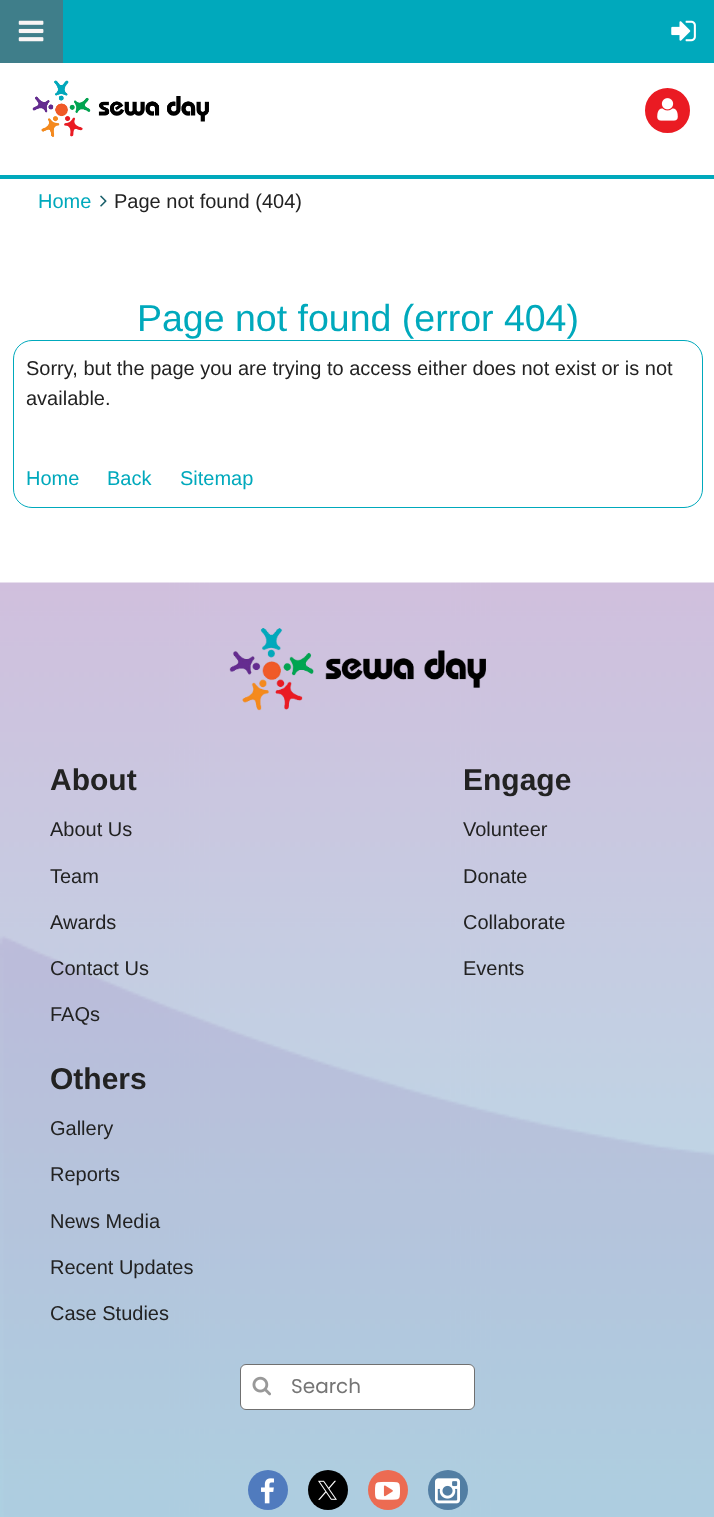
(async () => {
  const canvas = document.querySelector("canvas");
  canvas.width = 714;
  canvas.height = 1517;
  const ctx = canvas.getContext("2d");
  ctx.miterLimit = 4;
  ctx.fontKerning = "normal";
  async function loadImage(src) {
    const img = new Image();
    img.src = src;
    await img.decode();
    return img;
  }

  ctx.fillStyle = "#ffffff";
  ctx.fillRect(0, 0, 714, 1517);
  ctx.fillStyle = "#00a9bc";
  ctx.fillRect(63, 0, 651, 63);
  ctx.fillStyle = "#3f7e8a";
  ctx.fillRect(0, 0, 63, 63);
  ctx.drawImage(await loadImage("img/1.png"), 18, 20, 26, 22);
  ctx.drawImage(await loadImage("img/2.png"), 671, 20, 25, 22);
  ctx.fillStyle = "#00a9bc";
  ctx.fillRect(0, 175, 714, 4);
  ctx.drawImage(await loadImage("img/3.png"), 32, 80, 177, 57);
  ctx.fillStyle = "#ea1b23";
  ctx.beginPath();
  ctx.arc(667.5, 110.5, 21, 0, Math.PI * 2);
  ctx.fill();
  ctx.strokeStyle = "#ea1b23";
  ctx.lineWidth = 3;
  ctx.stroke();
  ctx.drawImage(await loadImage("img/4.png"), 657, 98, 21, 23);
  ctx.drawImage(await loadImage("img/5.png"), 100, 195, 7, 12);
  ctx.beginPath();
  ctx.roundRect(13.5, 340.5, 689, 167, 18.5);
  ctx.strokeStyle = "#00a9bc";
  ctx.lineWidth = 1;
  ctx.stroke();
  ctx.drawImage(await loadImage("img/6.png"), 0, 582, 714, 935);
  ctx.drawImage(await loadImage("img/7.png"), 229, 628, 257, 83);
  ctx.fillStyle = "#ffffff";
  ctx.beginPath();
  ctx.roundRect(240.5, 1364.5, 234, 45, 5.5);
  ctx.fill();
  ctx.strokeStyle = "#707070";
  ctx.stroke();
  ctx.drawImage(await loadImage("img/8.png"), 252, 1376, 19, 20);
  ctx.fillStyle = "#507bbe";
  ctx.beginPath();
  ctx.arc(268, 1490, 20, 0, Math.PI * 2);
  ctx.fill();
  ctx.drawImage(await loadImage("img/9.png"), 261, 1478, 13, 26);
  ctx.fillStyle = "#000000";
  ctx.beginPath();
  ctx.arc(328, 1490, 20, 0, Math.PI * 2);
  ctx.fill();
  ctx.drawImage(await loadImage("img/10.png"), 318, 1480, 19, 20);
  ctx.fillStyle = "#ec6b52";
  ctx.beginPath();
  ctx.arc(388, 1490, 20, 0, Math.PI * 2);
  ctx.fill();
  ctx.drawImage(await loadImage("img/11.png"), 375, 1481, 25, 19);
  ctx.fillStyle = "#527ea3";
  ctx.beginPath();
  ctx.arc(448, 1490, 20, 0, Math.PI * 2);
  ctx.fill();
  ctx.drawImage(await loadImage("img/12.png"), 435, 1478, 25, 26);
  ctx.font = "20px Liberation Sans";
  ctx.fillStyle = "#00a9bc";
  ctx.fillText("Home", 38, 208);
  ctx.fillStyle = "#222222";
  ctx.fillText("Page not found (404)", 114, 208);
  ctx.font = "37.5px Liberation Sans";
  ctx.fillStyle = "#00a9bc";
  ctx.fillText("Page not found (error 404)", 137, 331);
  ctx.font = "20px Liberation Sans";
  ctx.fillStyle = "#222222";
  ctx.fillText("Sorry, but the page you are trying to access either does not exist or is not", 26, 375);
  ctx.fillText("available.", 26, 405);
  ctx.fillStyle = "#00a9bc";
  for (const [text, x, y] of [
    ["Home", 26, 485],
    ["Back", 107, 485],
    ["Sitemap", 180, 485],
  ]) {
    ctx.fillText(text, x, y);
  }
  ctx.font = "bold 30px Liberation Sans";
  ctx.fillStyle = "#222222";
  ctx.fillText("About", 50, 790);
  ctx.font = "20px Liberation Sans";
  for (const [text, x, y] of [
    ["About Us", 50, 836],
    ["Team", 50, 883],
    ["Awards", 50, 929],
    ["Contact Us", 50, 975],
    ["FAQs", 50, 1021],
  ]) {
    ctx.fillText(text, x, y);
  }
  ctx.font = "bold 30px Liberation Sans";
  ctx.fillText("Engage", 463, 790);
  ctx.font = "20px Liberation Sans";
  for (const [text, x, y] of [
    ["Volunteer", 463, 836],
    ["Donate", 463, 883],
    ["Collaborate", 463, 929],
    ["Events", 463, 975],
  ]) {
    ctx.fillText(text, x, y);
  }
  ctx.font = "bold 30px Liberation Sans";
  ctx.fillText("Others", 50, 1089);
  ctx.font = "20px Liberation Sans";
  for (const [text, x, y] of [
    ["Gallery", 50, 1135],
    ["Reports", 50, 1181],
    ["News Media", 50, 1228],
    ["Recent Updates", 50, 1274],
    ["Case Studies", 50, 1320],
  ]) {
    ctx.fillText(text, x, y);
  }
  ctx.font = "20px Poppins";
  ctx.fillStyle = "#757575";
  ctx.fillText("Search", 291, 1393);
})();
